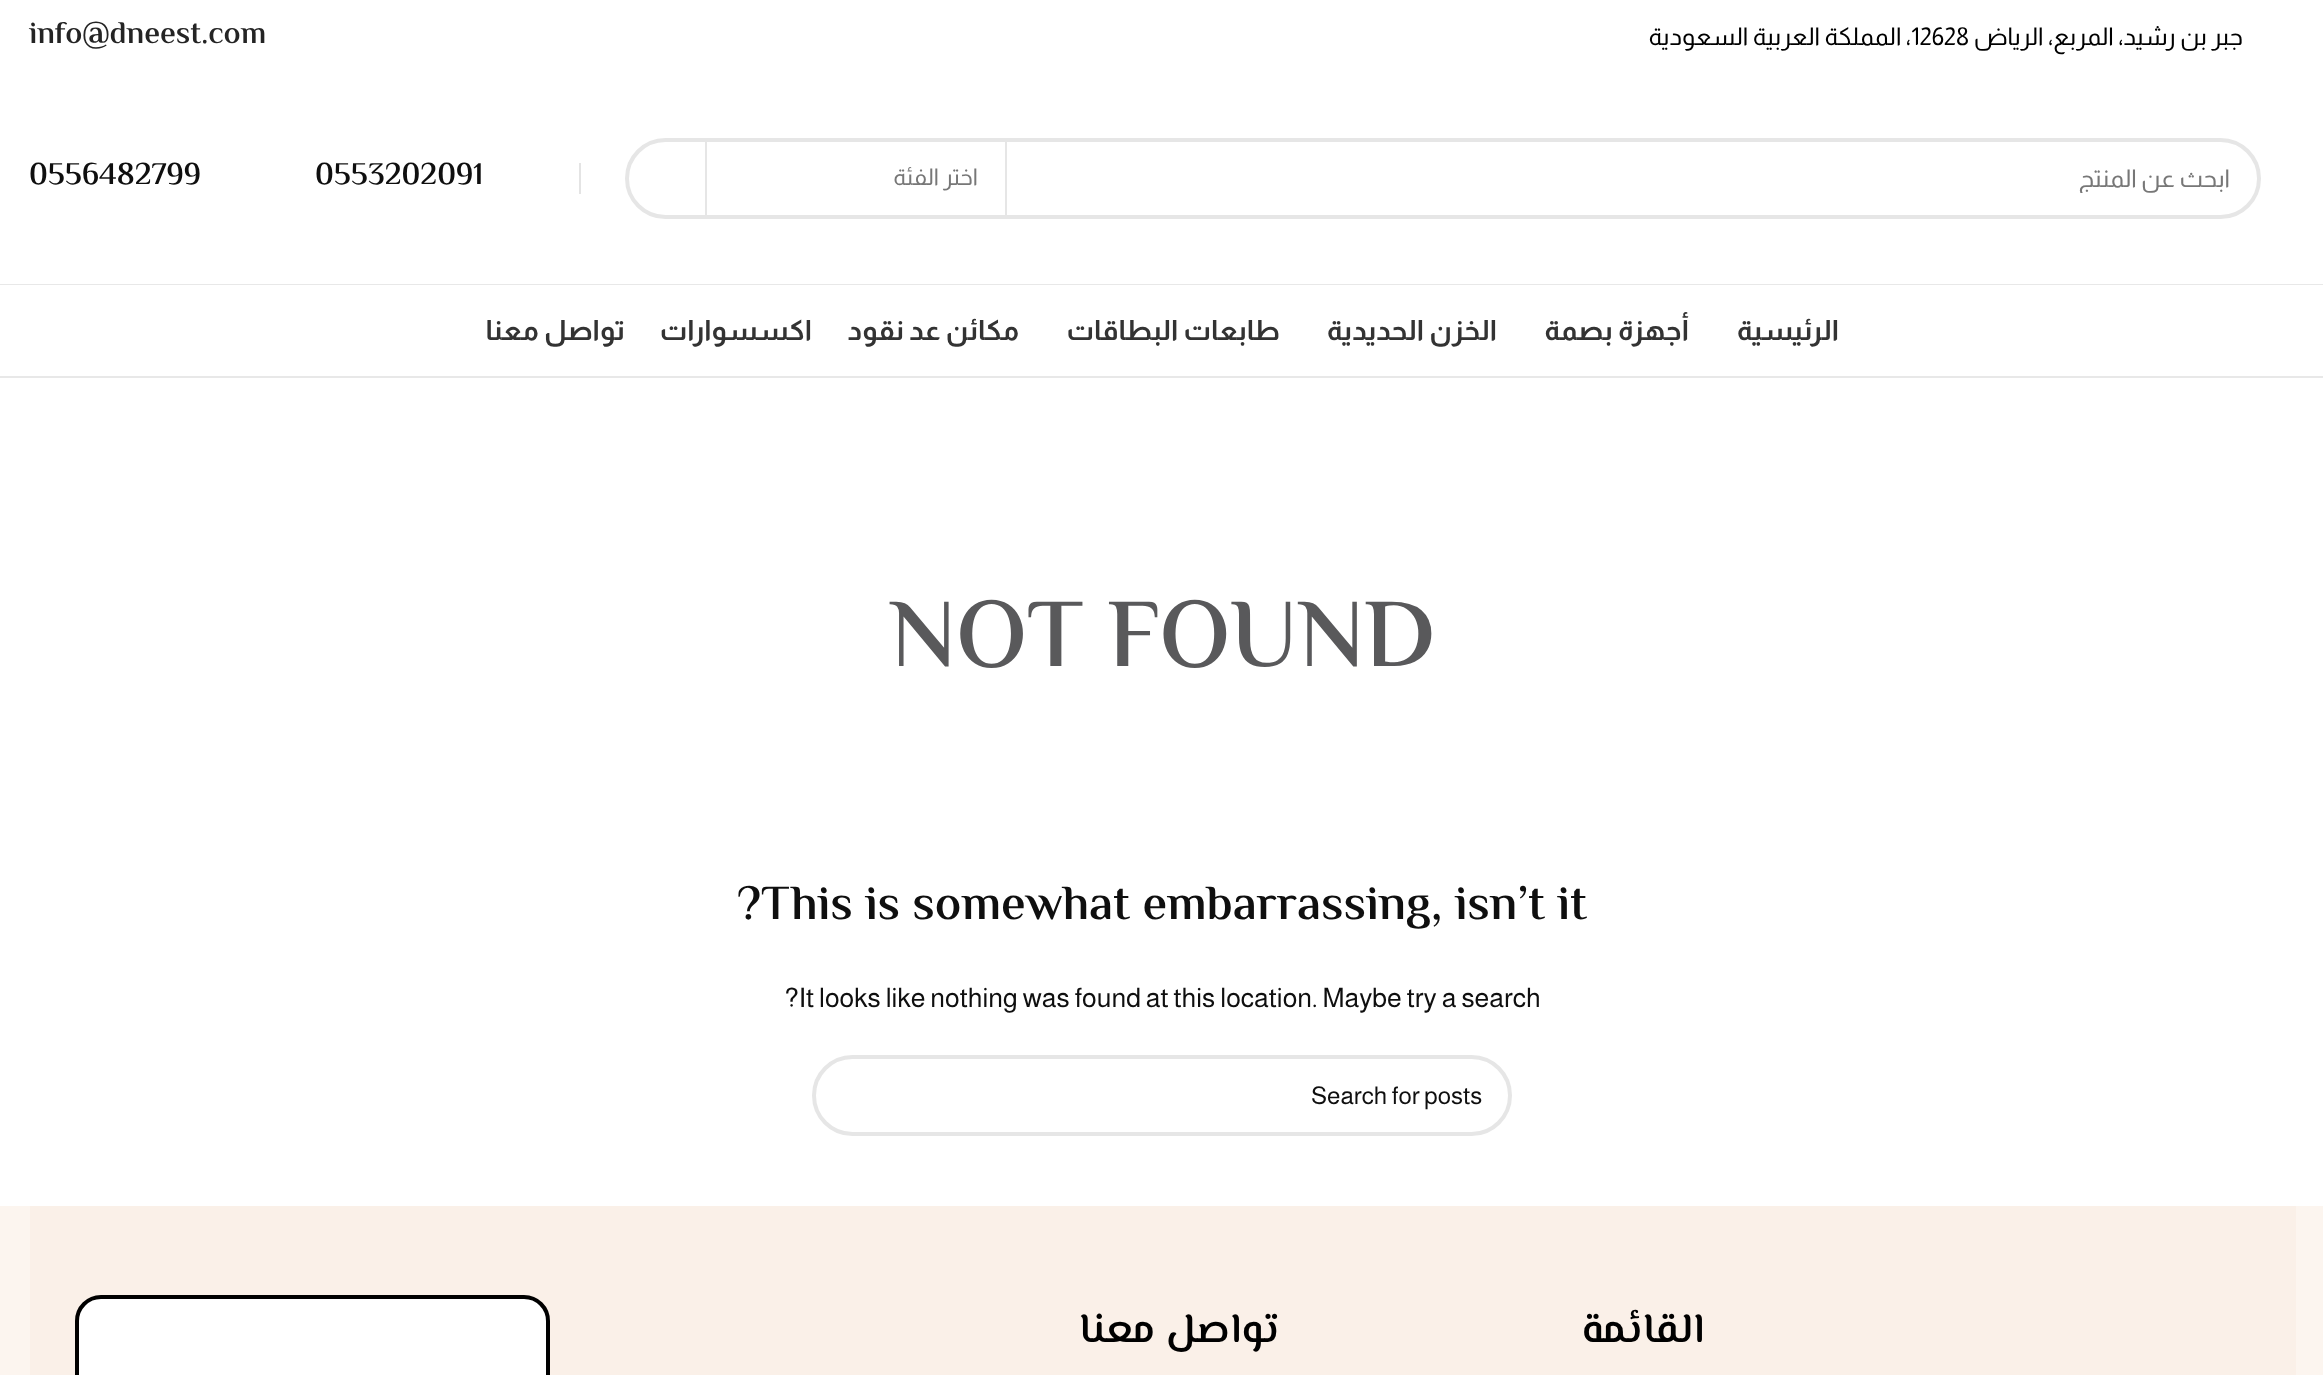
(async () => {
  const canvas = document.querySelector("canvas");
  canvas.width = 2323;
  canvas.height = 1375;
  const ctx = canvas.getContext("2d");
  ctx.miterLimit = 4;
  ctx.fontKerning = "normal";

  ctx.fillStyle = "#ffffff";
  ctx.fillRect(0, 0, 2323, 1375);
  ctx.fillStyle = "#e8e8e8";
  ctx.fillRect(0, 284, 2323, 1);
  ctx.fillStyle = "#e4e4e4";
  ctx.fillRect(579, 163, 2, 31);
  ctx.beginPath();
  ctx.roundRect(627, 140, 1632, 77, 38.5);
  ctx.strokeStyle = "#e6e6e6";
  ctx.lineWidth = 4;
  ctx.stroke();
  for (const [x, y, w, h, color] of [
    [1005, 142, 2, 73, "#e6e6e6"],
    [705, 142, 2, 73, "#e6e6e6"],
    [0, 376, 2323, 2, "#e8e8e8"],
  ]) {
    ctx.fillStyle = color;
    ctx.fillRect(x, y, w, h);
  }
  ctx.beginPath();
  ctx.roundRect(814, 1057, 696, 77, 38.5);
  ctx.stroke();
  ctx.fillStyle = "#fcf5ef";
  ctx.fillRect(0, 1206, 2323, 169);
  ctx.fillStyle = "#faf0e8";
  ctx.fillRect(30, 1206, 2266, 169);
  ctx.fillStyle = "#ffffff";
  ctx.beginPath();
  ctx.roundRect(77, 1297, 471, 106, 24);
  ctx.fill();
  ctx.strokeStyle = "#000000";
  ctx.stroke();
  ctx.font = "600 31.5px El Messiri";
  ctx.fillStyle = "#242424";
  ctx.fillText("info@dneest.com", 29, 43);
  ctx.direction = "rtl";
  ctx.font = "24.5px Almarai";
  ctx.fillStyle = "#000000";
  ctx.fillText("، المملكة العربية السعودية", 1911, 45);
  ctx.direction = "ltr";
  ctx.fillText("12628", 1911, 45);
  ctx.direction = "rtl";
  ctx.fillText("جبر بن رشيد، المربع، الرياض", 2243, 45);
  ctx.direction = "ltr";
  ctx.font = "600 31.5px El Messiri";
  ctx.fillStyle = "#0f0f0f";
  ctx.fillText("0556482799", 29, 184);
  ctx.fillText("0553202091", 315, 184);
  ctx.direction = "rtl";
  ctx.font = "23px Almarai";
  ctx.fillStyle = "#777777";
  ctx.fillText("اختر الفئة", 978, 185);
  ctx.save();
  ctx.beginPath();
  ctx.rect(1036, 165, 1195, 28);
  ctx.clip();
  ctx.font = "24.5px Almarai";
  ctx.fillText("ابحث عن المنتج", 2230, 187);
  ctx.restore();
  ctx.font = "bold 28px Almarai";
  ctx.fillStyle = "#333333";
  for (const [text, x, y] of [
    ["تواصل معنا", 625, 340],
    ["اكسسوارات", 812, 340],
    ["مكائن عد نقود", 1019, 340],
    ["طابعات البطاقات", 1280, 340],
    ["الخزن الحديدية", 1497, 340],
    ["أجهزة بصمة", 1689, 340],
    ["الرئيسية", 1839, 340],
  ]) {
    ctx.fillText(text, x, y);
  }
  ctx.direction = "ltr";
  ctx.font = "600 97.5px El Messiri";
  ctx.fillStyle = "#59595b";
  ctx.fillText("NOT FOUND", 889, 666);
  ctx.font = "600 49px El Messiri";
  ctx.fillStyle = "#0f0f0f";
  ctx.fillText("?This is somewhat embarrassing, isn’t it", 737, 919);
  ctx.font = "26.95px Almarai";
  ctx.fillText("?It looks like nothing was found at this location. Maybe try a search", 784, 1007);
  ctx.font = "24.5px Almarai";
  ctx.fillText("Search for posts", 1311, 1104);
  ctx.direction = "rtl";
  ctx.font = "600 42px El Messiri";
  ctx.fillStyle = "#000000";
  ctx.fillText("تواصل معنا", 1279, 1342);
  ctx.fillText("القائمة", 1704, 1342);
})();
